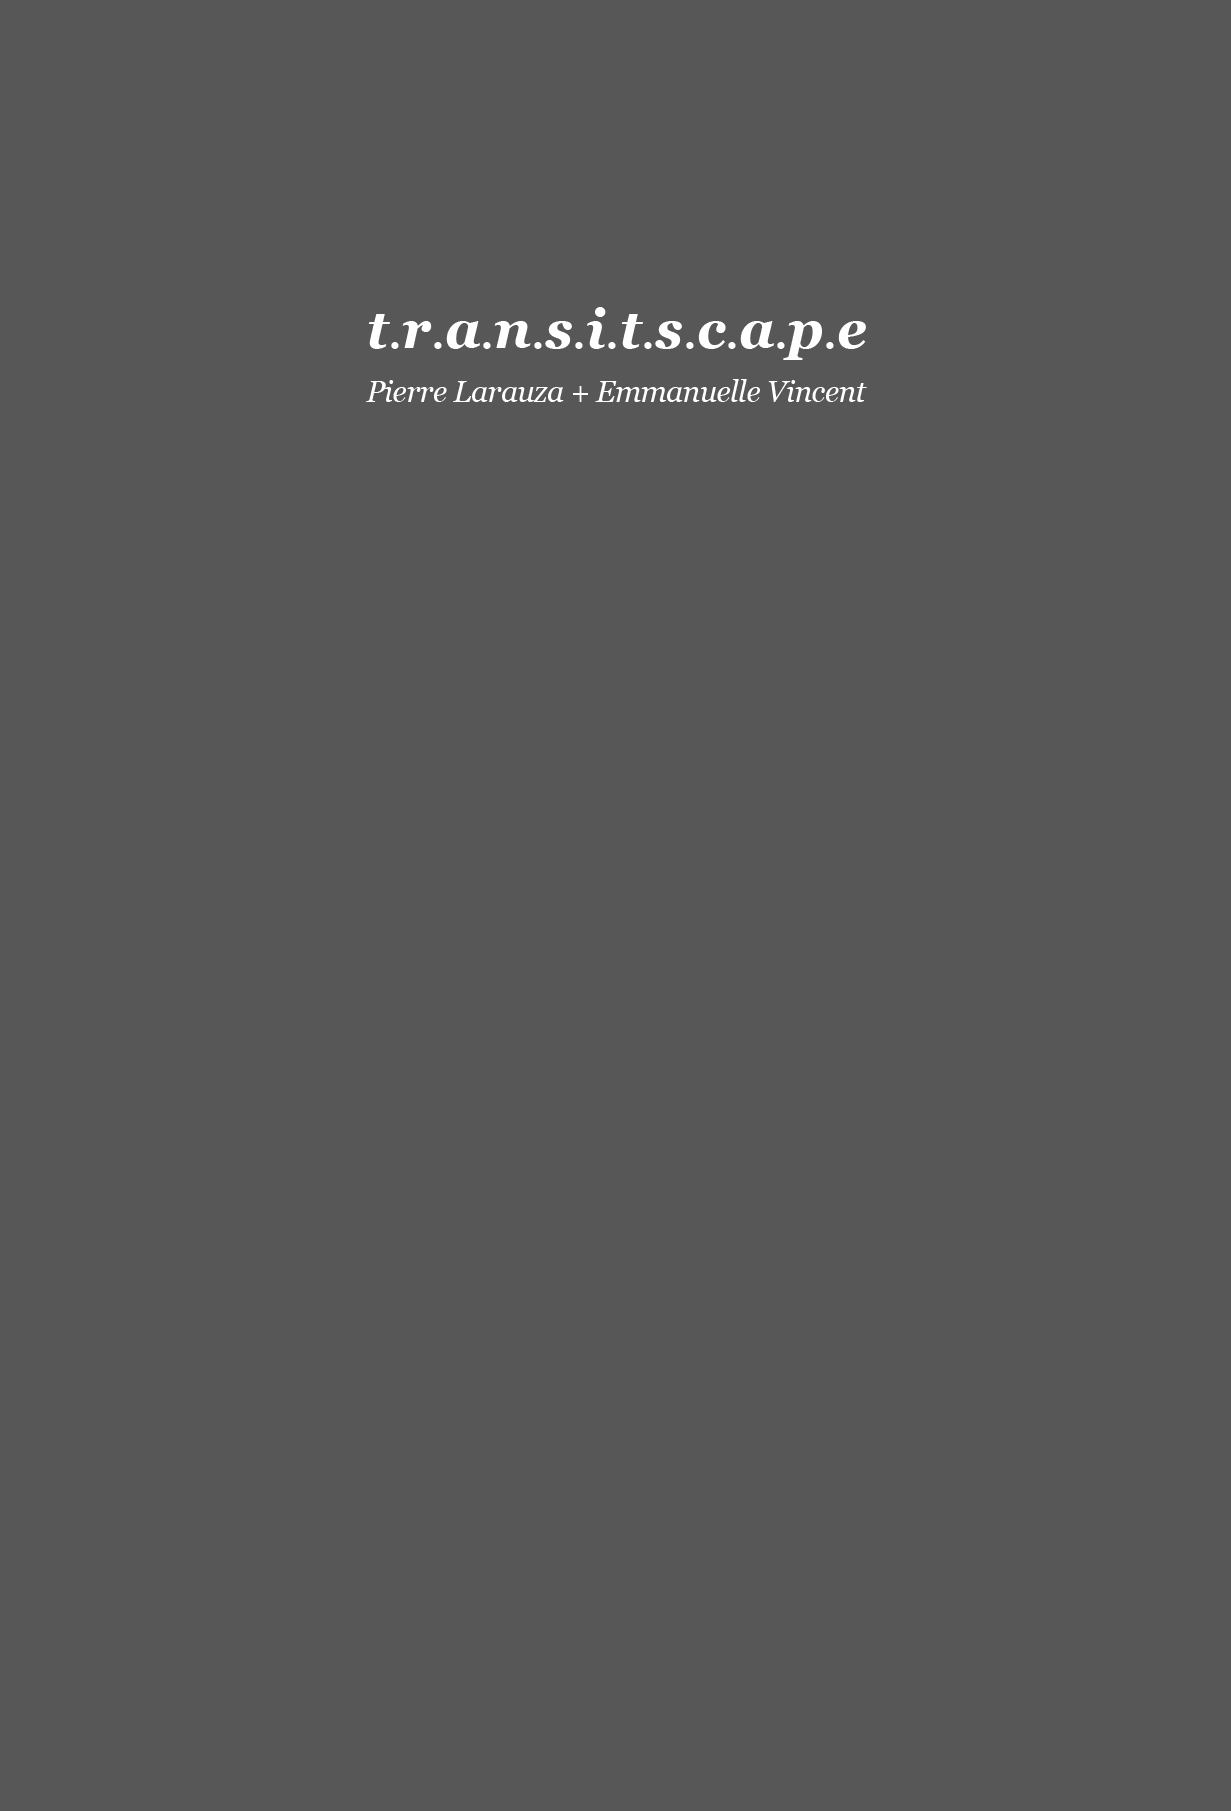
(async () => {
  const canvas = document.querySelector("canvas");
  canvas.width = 1231;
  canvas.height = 1811;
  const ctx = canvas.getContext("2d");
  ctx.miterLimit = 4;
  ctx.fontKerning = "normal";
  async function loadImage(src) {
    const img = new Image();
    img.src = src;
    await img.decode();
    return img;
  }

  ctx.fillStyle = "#575757";
  ctx.fillRect(0, 0, 1231, 1811);
  ctx.drawImage(await loadImage("img/1.png"), 366, 307, 501, 95);
})();
